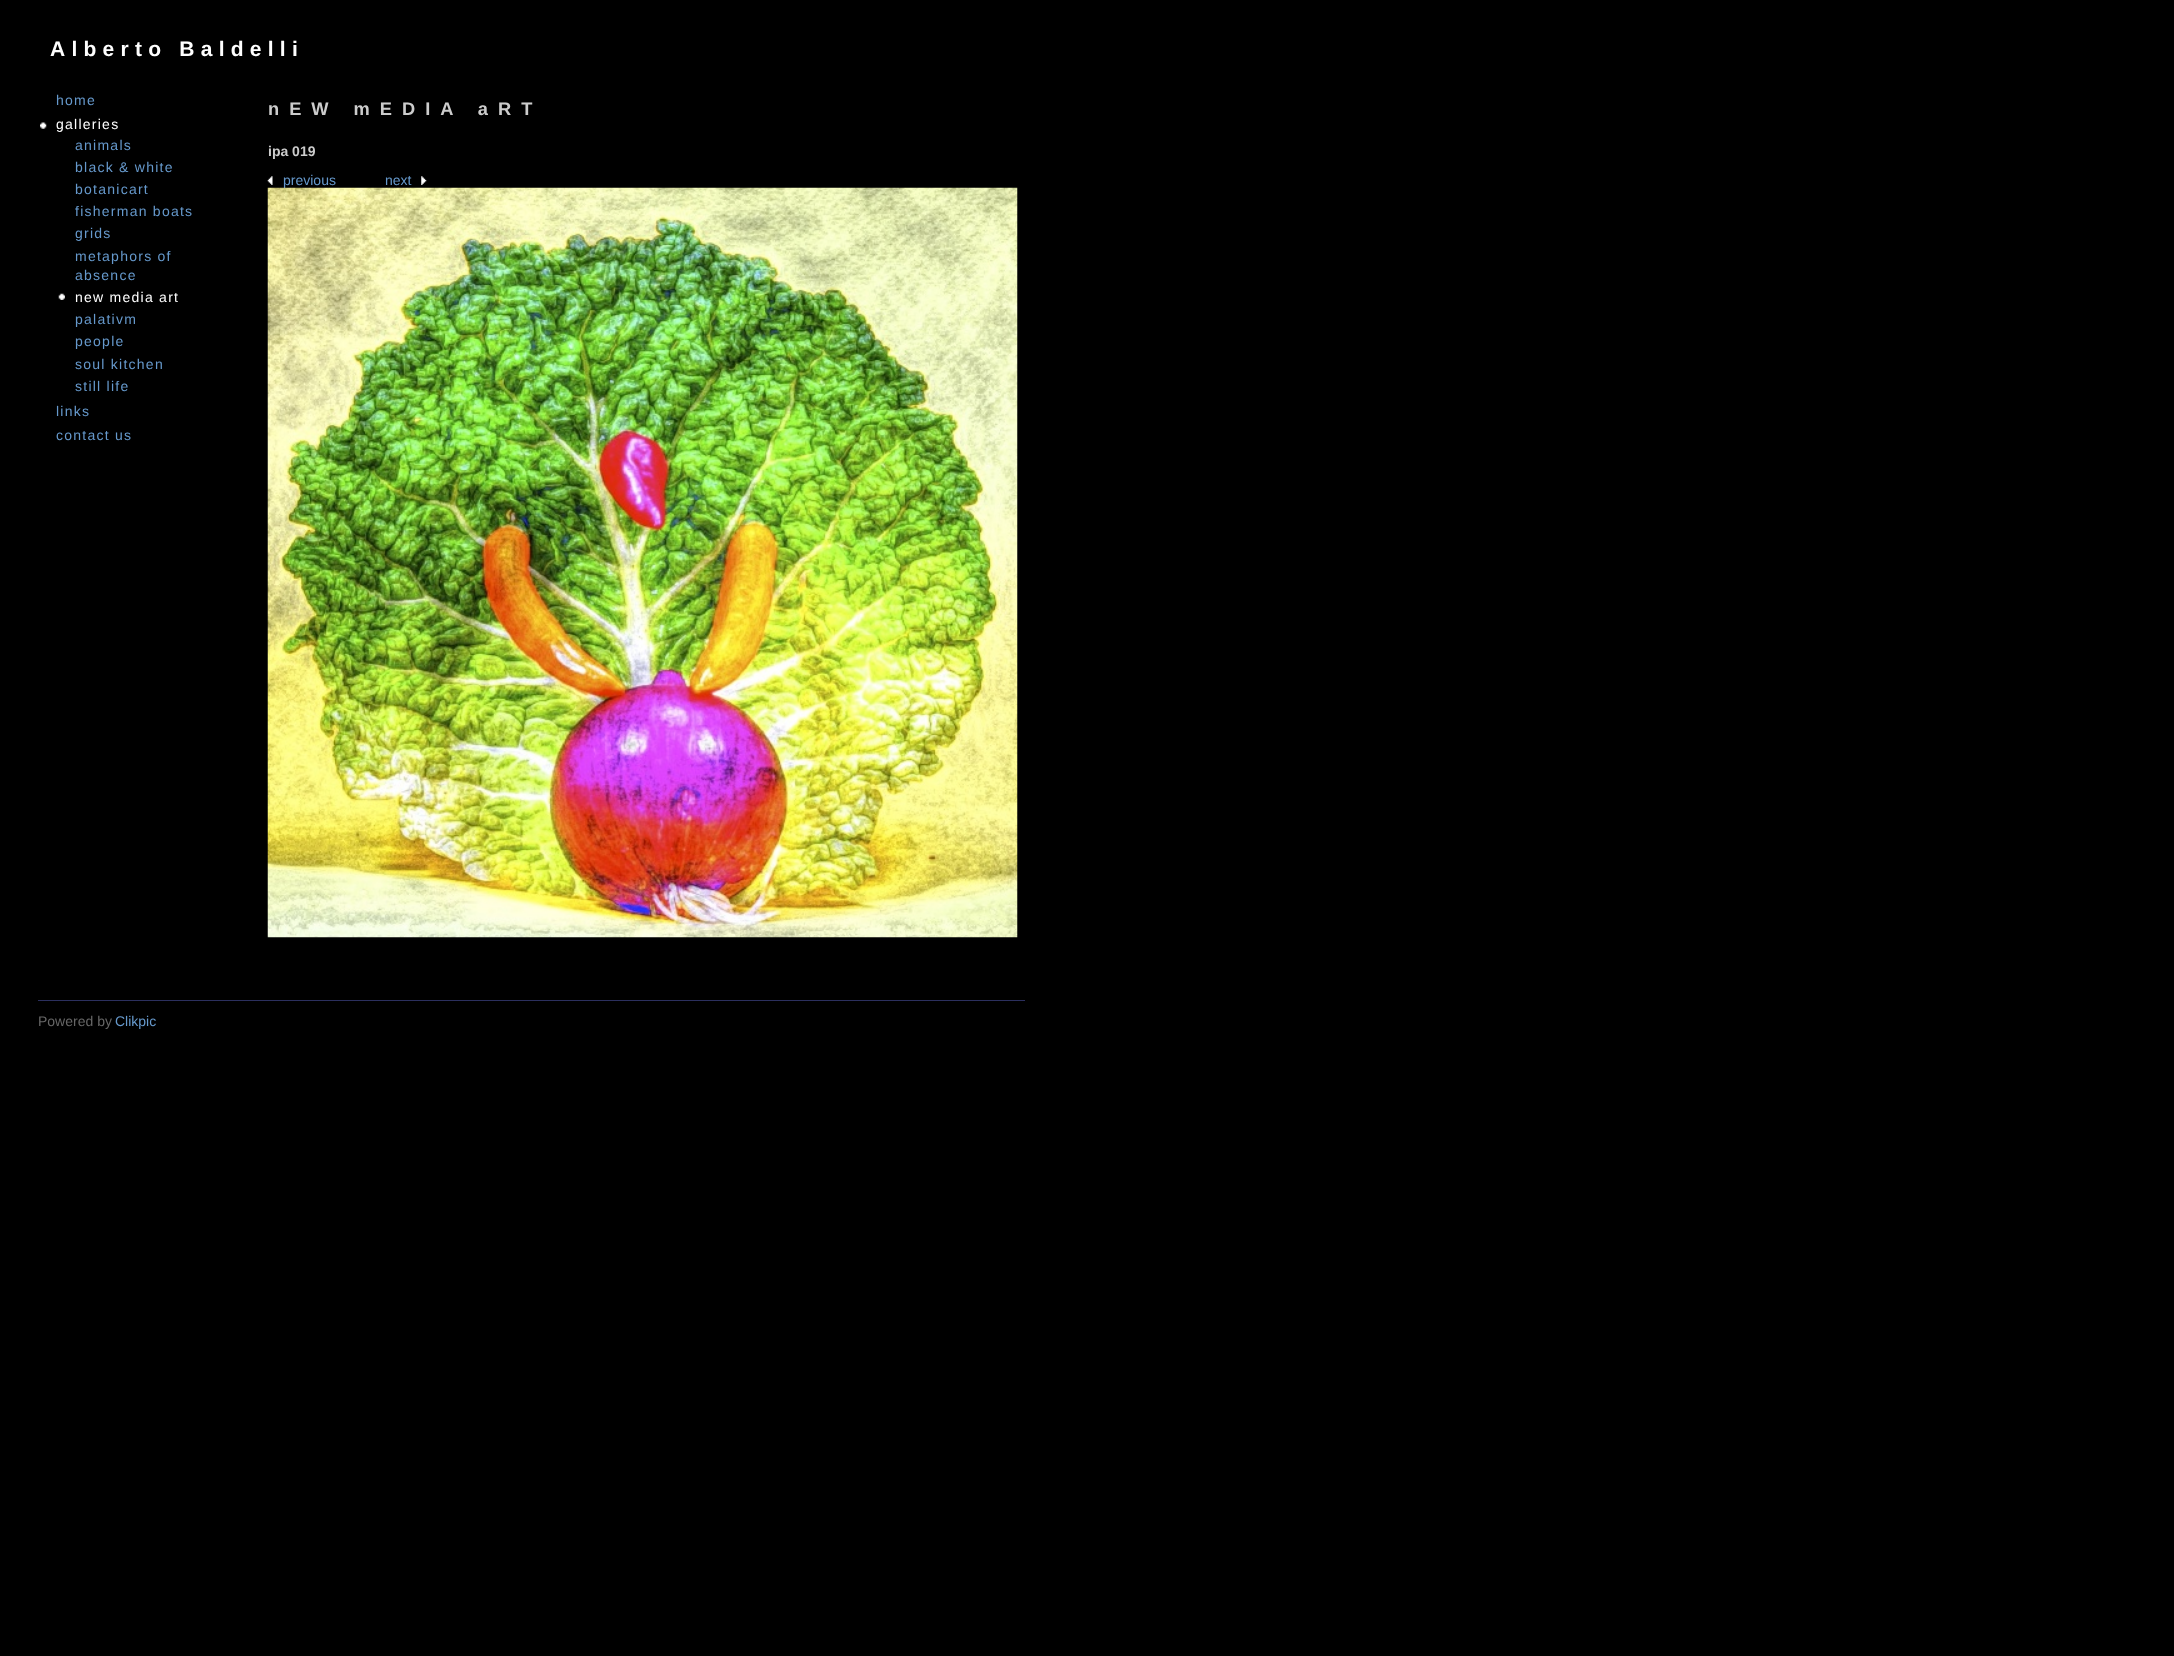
(async () => {
  const canvas = document.querySelector("canvas");
  canvas.width = 2174;
  canvas.height = 1656;
  const ctx = canvas.getContext("2d");
  ctx.miterLimit = 4;
  ctx.fontKerning = "normal";
  async function loadImage(src) {
    const img = new Image();
    img.src = src;
    await img.decode();
    return img;
  }

  ctx.fillStyle = "#000000";
  ctx.fillRect(0, 0, 2174, 1656);
  ctx.drawImage(await loadImage("img/1.png"), 40, 122, 7, 7);
  ctx.drawImage(await loadImage("img/2.png"), 267, 176, 6, 9);
  ctx.drawImage(await loadImage("img/3.png"), 421, 176, 6, 9);
  ctx.drawImage(await loadImage("img/5.png"), 58, 293, 7, 7);
  ctx.fillStyle = "#2b2f5e";
  ctx.fillRect(38, 1000, 987, 1);
  ctx.letterSpacing = "6.25px";
  ctx.font = "bold 21px Liberation Sans";
  ctx.fillStyle = "#ffffff";
  ctx.fillText("Alberto Baldelli", 50, 56);
  ctx.letterSpacing = "1.25px";
  ctx.font = "14px Liberation Sans";
  ctx.fillStyle = "#6699cc";
  ctx.fillText("home", 56, 105);
  ctx.fillStyle = "#ffffff";
  ctx.fillText("galleries", 56, 129);
  ctx.fillStyle = "#6699cc";
  ctx.fillText("links", 56, 416);
  ctx.fillText("contact us", 56, 440);
  ctx.letterSpacing = "10px";
  ctx.font = "bold 18.25px Liberation Sans";
  ctx.fillStyle = "#cccccc";
  ctx.fillText("nEW mEDIA aRT", 268, 115);
  ctx.letterSpacing = "0px";
  ctx.font = "bold 14px Liberation Sans";
  ctx.fillText("ipa 019", 268, 156);
  ctx.font = "14px Liberation Sans";
  ctx.fillStyle = "#6699cc";
  ctx.fillText("previous", 283, 185);
  ctx.fillText("next", 385, 185);
  ctx.drawImage(await loadImage("img/4.png"), 267, 187, 751, 751);
  ctx.letterSpacing = "1.25px";
  for (const [text, x, y] of [
    ["animals", 75, 150],
    ["black & white", 75, 172],
    ["botanicart", 75, 194],
    ["fisherman boats", 75, 216],
    ["grids", 75, 238],
    ["metaphors of", 75, 261],
    ["absence", 75, 280],
  ]) {
    ctx.fillText(text, x, y);
  }
  ctx.fillStyle = "#ffffff";
  ctx.fillText("new media art", 75, 302);
  ctx.fillStyle = "#6699cc";
  for (const [text, x, y] of [
    ["palativm", 75, 324],
    ["people", 75, 346],
    ["soul kitchen", 75, 369],
    ["still life", 75, 391],
  ]) {
    ctx.fillText(text, x, y);
  }
  ctx.letterSpacing = "0px";
  ctx.fillStyle = "#666666";
  ctx.fillText("Powered by", 38, 1026);
  ctx.fillStyle = "#6699cc";
  ctx.fillText("Clikpic", 115, 1026);
})();
